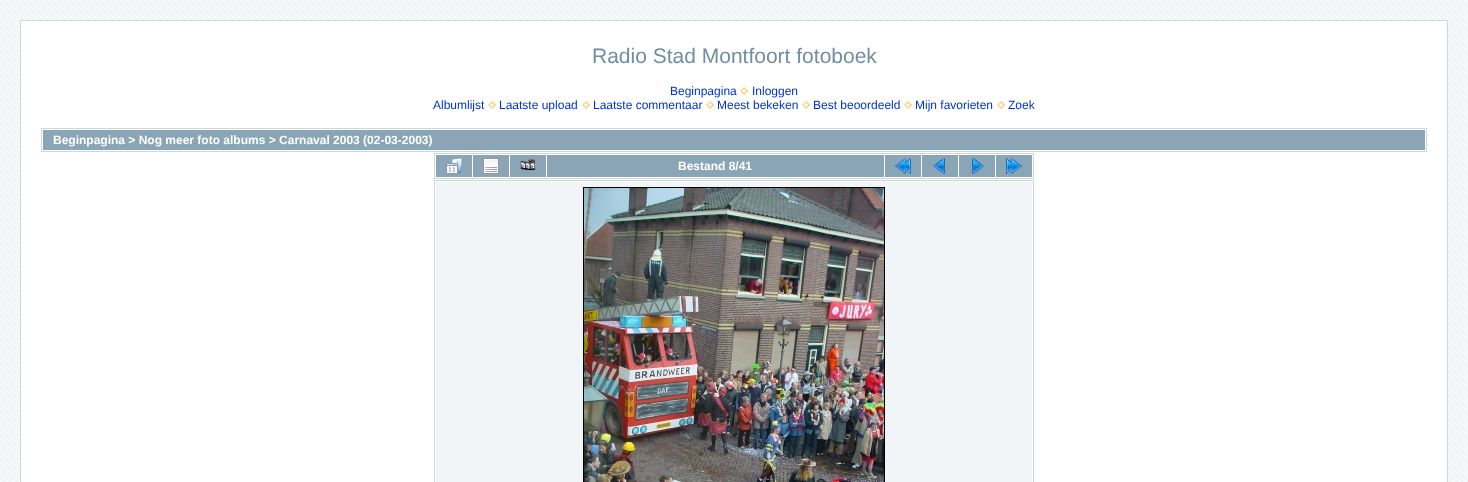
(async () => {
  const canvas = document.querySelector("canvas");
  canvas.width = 1468;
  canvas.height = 482;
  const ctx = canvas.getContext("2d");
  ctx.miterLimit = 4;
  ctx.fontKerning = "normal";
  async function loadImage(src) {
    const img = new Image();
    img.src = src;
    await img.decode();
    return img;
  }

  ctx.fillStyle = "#f2f5f7";
  ctx.fillRect(0, 0, 1468, 482);
  ctx.drawImage(await loadImage("img/1.png"), 0, 0, 1468, 482);
  ctx.fillStyle = "#ffffff";
  ctx.beginPath();
  ctx.rect(20.5, 20.5, 1427, 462);
  ctx.fill();
  ctx.strokeStyle = "#ccd7e0";
  ctx.stroke();
  ctx.drawImage(await loadImage("img/2.png"), 740, 87, 8, 8);
  ctx.drawImage(await loadImage("img/2.png"), 488, 101, 8, 8);
  ctx.drawImage(await loadImage("img/2.png"), 582, 101, 8, 8);
  ctx.drawImage(await loadImage("img/2.png"), 706, 101, 8, 8);
  ctx.drawImage(await loadImage("img/2.png"), 802, 101, 8, 8);
  ctx.drawImage(await loadImage("img/2.png"), 904, 101, 8, 8);
  ctx.drawImage(await loadImage("img/2.png"), 997, 101, 8, 8);
  ctx.strokeRect(41.5, 128.5, 1385, 23);
  ctx.fillStyle = "#8aa5b5";
  ctx.fillRect(43, 130, 1382, 20);
  ctx.strokeRect(434.5, 153.5, 599, 25);
  ctx.fillRect(436, 155, 36, 22);
  ctx.drawImage(await loadImage("img/3.png"), 446, 158, 16, 16);
  ctx.fillRect(473, 155, 36, 22);
  ctx.drawImage(await loadImage("img/4.png"), 483, 158, 16, 16);
  ctx.fillRect(510, 155, 36, 22);
  ctx.drawImage(await loadImage("img/5.png"), 520, 159, 16, 12);
  ctx.fillRect(547, 155, 337, 22);
  ctx.fillRect(885, 155, 36, 22);
  ctx.drawImage(await loadImage("img/6.png"), 895, 158, 16, 16);
  ctx.fillRect(922, 155, 36, 22);
  ctx.drawImage(await loadImage("img/7.png"), 933, 158, 12, 16);
  ctx.fillRect(959, 155, 36, 22);
  ctx.drawImage(await loadImage("img/8.png"), 972, 158, 12, 16);
  ctx.fillRect(996, 155, 36, 22);
  ctx.drawImage(await loadImage("img/9.png"), 1006, 158, 16, 16);
  ctx.strokeRect(434.5, 180.5, 599, 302);
  ctx.fillStyle = "#f2f5f7";
  ctx.fillRect(436, 182, 596, 300);
  ctx.drawImage(await loadImage("img/10.png"), 584, 188, 300, 294);
  ctx.strokeStyle = "#000000";
  ctx.strokeRect(583.5, 187.5, 301, 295);
  ctx.font = "21px Liberation Sans";
  ctx.fillStyle = "#718ea5";
  ctx.fillText("Radio Stad Montfoort fotoboek", 592, 63);
  ctx.font = "12px Liberation Sans";
  ctx.fillStyle = "#0033cc";
  for (const [text, x, y] of [
    ["Beginpagina", 670, 95],
    ["Inloggen", 752, 95],
    ["Albumlijst", 433, 109],
    ["Laatste upload", 499, 109],
    ["Laatste commentaar", 593, 109],
    ["Meest bekeken", 717, 109],
    ["Best beoordeeld", 813, 109],
    ["Mijn favorieten", 915, 109],
    ["Zoek", 1008, 109],
  ]) {
    ctx.fillText(text, x, y);
  }
  ctx.font = "bold 12px Liberation Sans";
  ctx.fillStyle = "#ffffff";
  ctx.fillText("Beginpagina > Nog meer foto albums > Carnaval 2003 (02-03-2003)", 53, 144);
  ctx.fillText("Bestand 8/41", 678, 170);
})();
